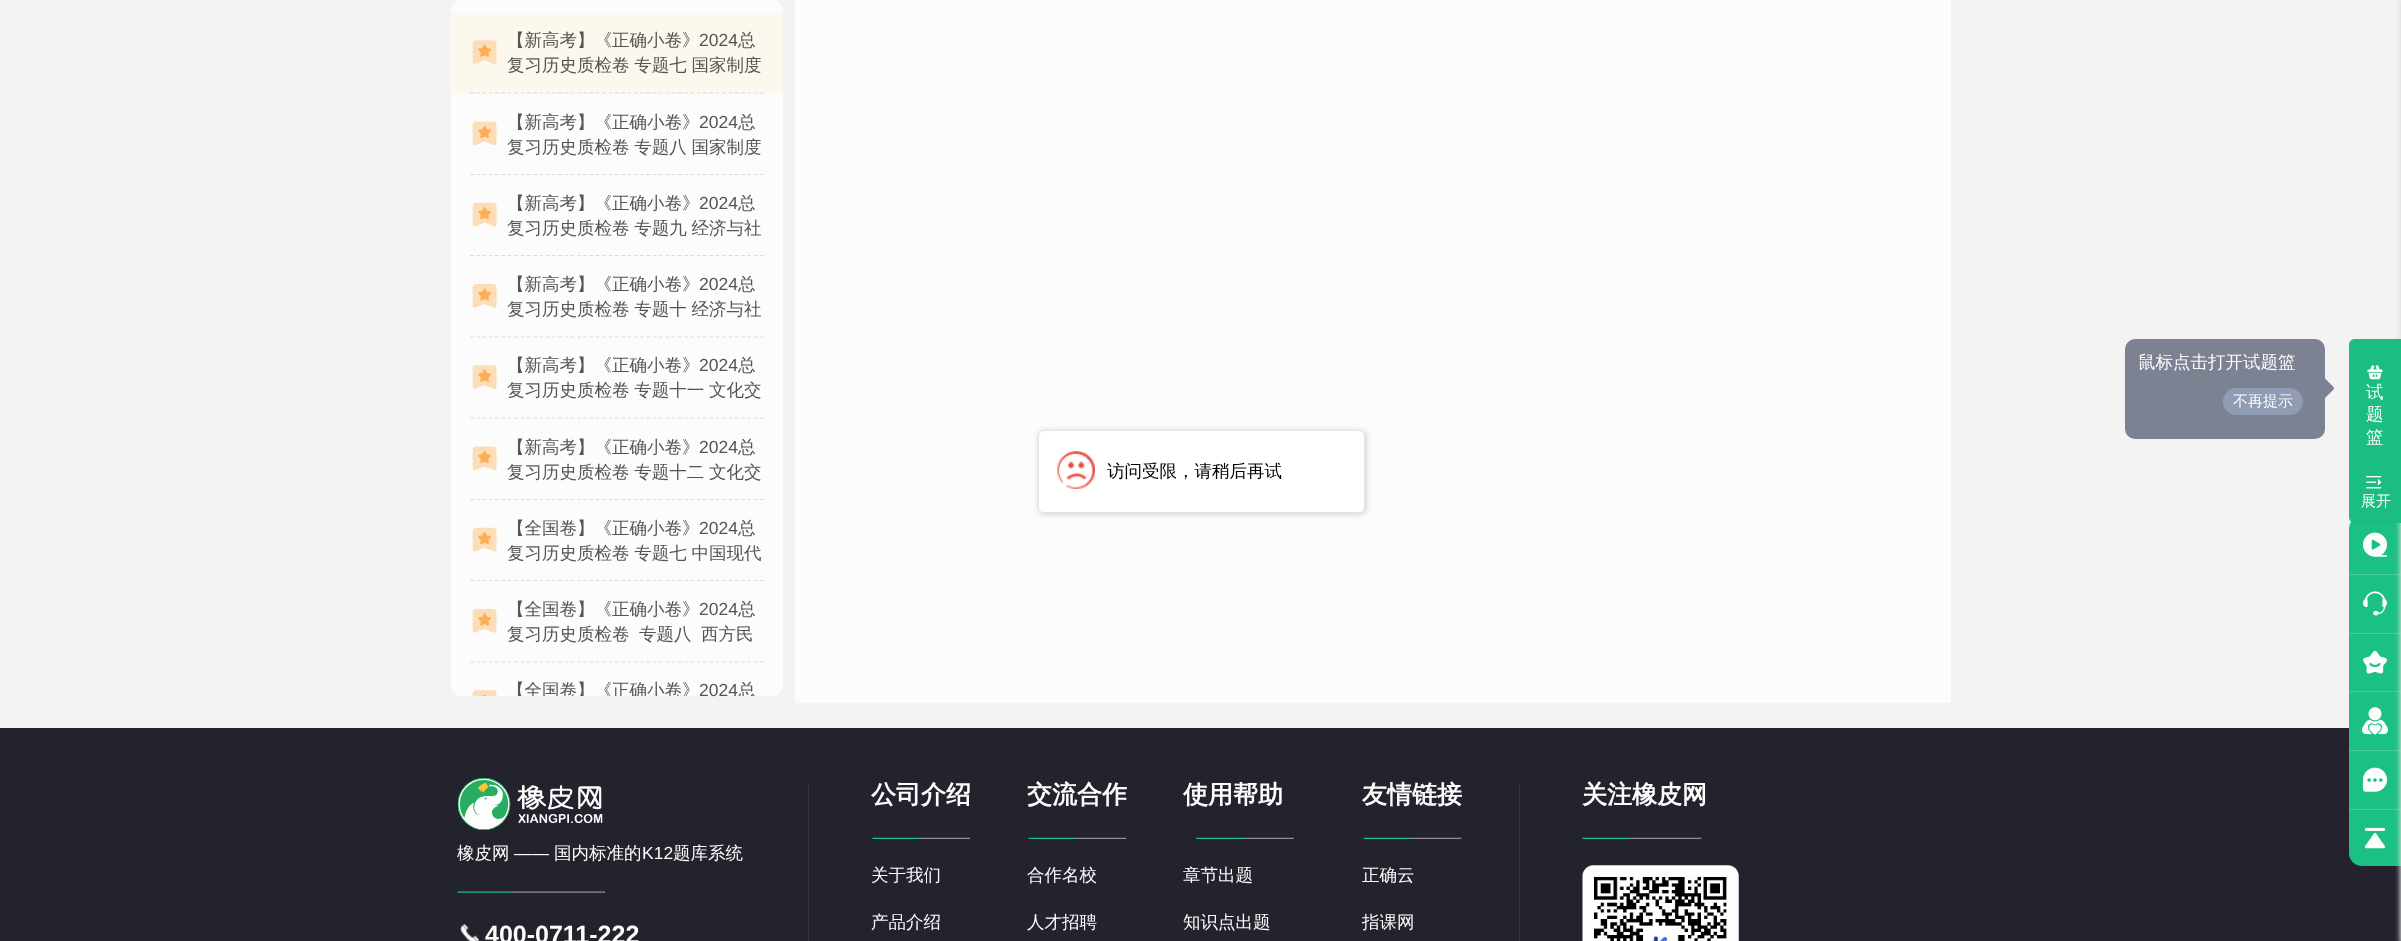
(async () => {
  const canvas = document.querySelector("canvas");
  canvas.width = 2401;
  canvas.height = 941;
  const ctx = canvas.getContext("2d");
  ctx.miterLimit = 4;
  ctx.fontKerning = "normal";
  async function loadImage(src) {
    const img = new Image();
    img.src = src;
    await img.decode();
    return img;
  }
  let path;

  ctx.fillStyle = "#f3f3f3";
  ctx.fillRect(0, 0, 2401, 941);
  ctx.fillStyle = "#fcfcfc";
  ctx.beginPath();
  ctx.roundRect(451, 0, 332, 696, 10);
  ctx.fill();
  ctx.fillStyle = "#fcf8ee";
  ctx.fillRect(451, 13, 332, 81);
  ctx.drawImage(await loadImage("img/1.png"), 472, 40, 25, 24);
  path = new Path2D("M470 93H764");
  ctx.strokeStyle = "#dcdcdc";
  ctx.lineWidth = 1.2;
  ctx.setLineDash([3.75, 2.55]);
  ctx.stroke(path);
  ctx.drawImage(await loadImage("img/2.png"), 472, 121, 25, 25);
  path = new Path2D("M470 174.5H764");
  ctx.stroke(path);
  ctx.drawImage(await loadImage("img/3.png"), 472, 202, 25, 25);
  path = new Path2D("M470 255.5H764");
  ctx.stroke(path);
  ctx.drawImage(await loadImage("img/4.png"), 472, 284, 25, 24);
  path = new Path2D("M470 337H764");
  ctx.stroke(path);
  ctx.drawImage(await loadImage("img/5.png"), 472, 365, 25, 24);
  path = new Path2D("M470 418H764");
  ctx.stroke(path);
  ctx.drawImage(await loadImage("img/2.png"), 472, 446, 25, 25);
  path = new Path2D("M470 499.5H764");
  ctx.stroke(path);
  ctx.drawImage(await loadImage("img/3.png"), 472, 527, 25, 25);
  path = new Path2D("M470 580.5H764");
  ctx.stroke(path);
  ctx.drawImage(await loadImage("img/4.png"), 472, 609, 25, 24);
  path = new Path2D("M470 662H764");
  ctx.stroke(path);
  ctx.drawImage(await loadImage("img/6.png"), 472, 690, 25, 6);
  ctx.fillStyle = "#fcfcfc";
  ctx.fillRect(795, 0, 1156, 703);
  ctx.fillStyle = "rgba(0, 0, 0, 0.2)";
  ctx.filter = "blur(3px)";
  ctx.beginPath();
  ctx.roundRect(1039, 431, 327, 83, 6);
  ctx.fill();
  ctx.filter = "none";
  ctx.fillStyle = "#ffffff";
  ctx.beginPath();
  ctx.roundRect(1038, 430, 327, 83, 6);
  ctx.fill();
  ctx.beginPath();
  ctx.roundRect(1038.5, 430.5, 326, 82, 5.5);
  ctx.strokeStyle = "rgba(0, 0, 0, 0.1)";
  ctx.lineWidth = 1;
  ctx.setLineDash([]);
  ctx.stroke();
  ctx.drawImage(await loadImage("img/7.png"), 1057, 451, 38, 38);
  ctx.fillStyle = "#22232d";
  ctx.fillRect(0, 728, 2401, 213);
  ctx.fillStyle = "#1bc183";
  ctx.beginPath();
  ctx.roundRect(2349, 516, 52, 59, [13, 0, 0, 0]);
  ctx.fill();
  for (const [x, y, w, h, color] of [
    [2349, 574, 52, 1, "#45ca99"],
    [2349, 575, 52, 58, "#1bc183"],
    [2349, 633, 52, 1, "#45ca99"],
    [2349, 634, 52, 116, "#1bc183"],
    [2349, 691, 52, 1, "#45ca99"],
    [2349, 750, 52, 1, "#45ca99"],
    [2349, 751, 52, 58, "#1bc183"],
    [2349, 809, 52, 1, "#45ca99"],
  ]) {
    ctx.fillStyle = color;
    ctx.fillRect(x, y, w, h);
  }
  ctx.fillStyle = "#1bc183";
  ctx.beginPath();
  ctx.roundRect(2349, 810, 52, 56, [0, 0, 0, 13]);
  ctx.fill();
  ctx.fillStyle = "#dcdcdc";
  ctx.filter = "blur(2.5px)";
  ctx.beginPath();
  ctx.rect(2400, -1, 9, 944);
  ctx.fill();
  ctx.filter = "none";
  ctx.fillStyle = "#1bbd81";
  path = new Path2D("M2355 339H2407V523H2355C2351.5 523 2349 520.5 2349 517V345C2349 341.5 2351.5 339 2355 339Z");
  ctx.fill(path);
  ctx.fillStyle = "#7c8292";
  ctx.beginPath();
  ctx.roundRect(2125, 339, 200, 100, 10);
  ctx.fill();
  path = new Path2D("M2324 399V377.5L2334 387.5V389Z");
  ctx.fill(path);
  ctx.fillStyle = "#909bb4";
  ctx.beginPath();
  ctx.roundRect(2223, 388, 80, 27, 13.5);
  ctx.fill();
  ctx.drawImage(await loadImage("img/8.png"), 2367, 365, 16, 15);
  ctx.drawImage(await loadImage("img/9.png"), 2366, 476, 16, 13);
  ctx.drawImage(await loadImage("img/10.png"), 458, 778, 145, 52);
  ctx.drawImage(await loadImage("img/11.png"), 457, 891, 148, 2);
  ctx.drawImage(await loadImage("img/12.png"), 460, 924, 19, 17);
  ctx.fillStyle = "#32333c";
  ctx.fillRect(808, 784, 1, 157);
  ctx.drawImage(await loadImage("img/13.png"), 872, 837, 98, 2);
  ctx.drawImage(await loadImage("img/14.png"), 1028, 837, 99, 2);
  ctx.drawImage(await loadImage("img/15.png"), 1196, 837, 98, 2);
  ctx.drawImage(await loadImage("img/14.png"), 1363, 837, 99, 2);
  ctx.fillRect(1519, 784, 1, 157);
  ctx.drawImage(await loadImage("img/16.png"), 1582, 837, 120, 2);
  ctx.drawImage(await loadImage("img/17.png"), 1582, 865, 157, 76);
  ctx.drawImage(await loadImage("img/18.png"), 2363, 532, 24, 25);
  ctx.drawImage(await loadImage("img/19.png"), 2363, 591, 24, 25);
  ctx.drawImage(await loadImage("img/20.png"), 2363, 650, 24, 24);
  ctx.drawImage(await loadImage("img/21.png"), 2362, 707, 26, 28);
  ctx.drawImage(await loadImage("img/22.png"), 2362, 767, 25, 25);
  ctx.drawImage(await loadImage("img/23.png"), 2364, 827, 22, 22);
  ctx.font = "500 17.5px WenQuanYi Zen Hei";
  ctx.fillStyle = "#545454";
  ctx.fillText("【新高考】《正确小卷》", 507, 46);
  ctx.font = "17.5px Liberation Sans";
  ctx.fillText("2024", 699, 46);
  ctx.font = "500 17.5px WenQuanYi Zen Hei";
  ctx.fillText("总", 738, 46);
  ctx.wordSpacing = "-0.5px";
  ctx.fillText("复习历史质检卷 专题七 国家制度", 507, 71);
  ctx.wordSpacing = "0px";
  ctx.fillText("【新高考】《正确小卷》", 507, 128);
  ctx.font = "17.5px Liberation Sans";
  ctx.fillText("2024", 699, 128);
  ctx.font = "500 17.5px WenQuanYi Zen Hei";
  ctx.fillText("总", 738, 128);
  ctx.wordSpacing = "-0.5px";
  ctx.fillText("复习历史质检卷 专题八 国家制度", 507, 153);
  ctx.wordSpacing = "0px";
  ctx.fillText("【新高考】《正确小卷》", 507, 209);
  ctx.font = "17.5px Liberation Sans";
  ctx.fillText("2024", 699, 209);
  ctx.font = "500 17.5px WenQuanYi Zen Hei";
  ctx.fillText("总", 738, 209);
  ctx.wordSpacing = "-0.5px";
  ctx.fillText("复习历史质检卷 专题九 经济与社", 507, 234);
  ctx.wordSpacing = "0px";
  ctx.fillText("【新高考】《正确小卷》", 507, 290);
  ctx.font = "17.5px Liberation Sans";
  ctx.fillText("2024", 699, 290);
  ctx.font = "500 17.5px WenQuanYi Zen Hei";
  ctx.fillText("总", 738, 290);
  ctx.wordSpacing = "-0.5px";
  ctx.fillText("复习历史质检卷 专题十 经济与社", 507, 315);
  ctx.wordSpacing = "0px";
  ctx.fillText("【新高考】《正确小卷》", 507, 371);
  ctx.font = "17.5px Liberation Sans";
  ctx.fillText("2024", 699, 371);
  ctx.font = "500 17.5px WenQuanYi Zen Hei";
  ctx.fillText("总", 738, 371);
  ctx.wordSpacing = "-0.5px";
  ctx.fillText("复习历史质检卷 专题十一 文化交", 507, 396);
  ctx.wordSpacing = "0px";
  ctx.fillText("【新高考】《正确小卷》", 507, 453);
  ctx.font = "17.5px Liberation Sans";
  ctx.fillText("2024", 699, 453);
  ctx.font = "500 17.5px WenQuanYi Zen Hei";
  ctx.fillText("总", 738, 453);
  ctx.wordSpacing = "-0.5px";
  ctx.fillText("复习历史质检卷 专题十二 文化交", 507, 478);
  ctx.wordSpacing = "0px";
  ctx.fillText("【全国卷】《正确小卷》", 507, 534);
  ctx.font = "17.5px Liberation Sans";
  ctx.fillText("2024", 699, 534);
  ctx.font = "500 17.5px WenQuanYi Zen Hei";
  ctx.fillText("总", 738, 534);
  ctx.wordSpacing = "-0.5px";
  ctx.fillText("复习历史质检卷 专题七 中国现代", 507, 559);
  ctx.wordSpacing = "0px";
  ctx.fillText("【全国卷】《正确小卷》", 507, 615);
  ctx.font = "17.5px Liberation Sans";
  ctx.fillText("2024", 699, 615);
  ctx.font = "500 17.5px WenQuanYi Zen Hei";
  ctx.fillText("总", 738, 615);
  ctx.wordSpacing = "-0.5px";
  ctx.fillText("复习历史质检卷  专题八  西方民", 507, 640);
  ctx.save();
  ctx.beginPath();
  ctx.roundRect(451, 0, 332, 696, 10);
  ctx.clip();
  ctx.wordSpacing = "0px";
  ctx.fillText("【全国卷】《正确小卷》", 507, 696);
  ctx.restore();
  ctx.wordSpacing = "0px";
  ctx.font = "17.5px Liberation Sans";
  ctx.fillText("2024", 699, 696);
  ctx.save();
  ctx.beginPath();
  ctx.roundRect(451, 0, 332, 696, 10);
  ctx.clip();
  ctx.font = "500 17.5px WenQuanYi Zen Hei";
  ctx.fillText("总", 738, 696);
  ctx.restore();
  ctx.font = "500 17.5px WenQuanYi Zen Hei";
  ctx.fillStyle = "#000000";
  ctx.fillText("访问受限，请稍后再试", 1107, 477);
  ctx.fillStyle = "#fcfcfc";
  ctx.fillText("鼠标点击打开试题篮", 2138, 368);
  ctx.font = "500 15px WenQuanYi Zen Hei";
  ctx.fillText("不再提示", 2233, 406);
  ctx.font = "500 17.5px WenQuanYi Zen Hei";
  for (const [text, x, y] of [
    ["试", 2366, 398],
    ["题", 2366, 420],
    ["篮", 2366, 443],
  ]) {
    ctx.fillText(text, x, y);
  }
  ctx.font = "500 15px WenQuanYi Zen Hei";
  ctx.fillText("展开", 2361, 506);
  ctx.font = "500 17.5px WenQuanYi Zen Hei";
  ctx.fillText("橡皮网", 457, 859);
  ctx.font = "17.5px Liberation Sans";
  ctx.fillText("——", 514, 859);
  ctx.font = "500 17.5px WenQuanYi Zen Hei";
  ctx.fillText("国内标准的", 554, 859);
  ctx.font = "17.5px Liberation Sans";
  ctx.fillText("K12", 642, 859);
  ctx.font = "500 17.5px WenQuanYi Zen Hei";
  ctx.fillText("题库系统", 673, 859);
  ctx.font = "bold 25px Liberation Sans";
  ctx.fillText("400-0711-222", 485, 943);
  ctx.font = "bold 25px WenQuanYi Zen Hei";
  ctx.fillText("公司介绍", 871, 803);
  ctx.font = "500 17.5px WenQuanYi Zen Hei";
  ctx.fillText("关于我们", 871, 881);
  ctx.fillText("产品介绍", 871, 928);
  ctx.font = "bold 25px WenQuanYi Zen Hei";
  ctx.fillText("交流合作", 1027, 803);
  ctx.font = "500 17.5px WenQuanYi Zen Hei";
  ctx.fillText("合作名校", 1027, 881);
  ctx.fillText("人才招聘", 1027, 928);
  ctx.font = "bold 25px WenQuanYi Zen Hei";
  ctx.fillText("使用帮助", 1183, 803);
  ctx.font = "500 17.5px WenQuanYi Zen Hei";
  ctx.fillText("章节出题", 1183, 881);
  ctx.fillText("知识点出题", 1183, 928);
  ctx.font = "bold 25px WenQuanYi Zen Hei";
  ctx.fillText("友情链接", 1362, 803);
  ctx.font = "500 17.5px WenQuanYi Zen Hei";
  ctx.fillText("正确云", 1362, 881);
  ctx.fillText("指课网", 1362, 928);
  ctx.font = "bold 25px WenQuanYi Zen Hei";
  ctx.fillText("关注橡皮网", 1582, 803);
})();
